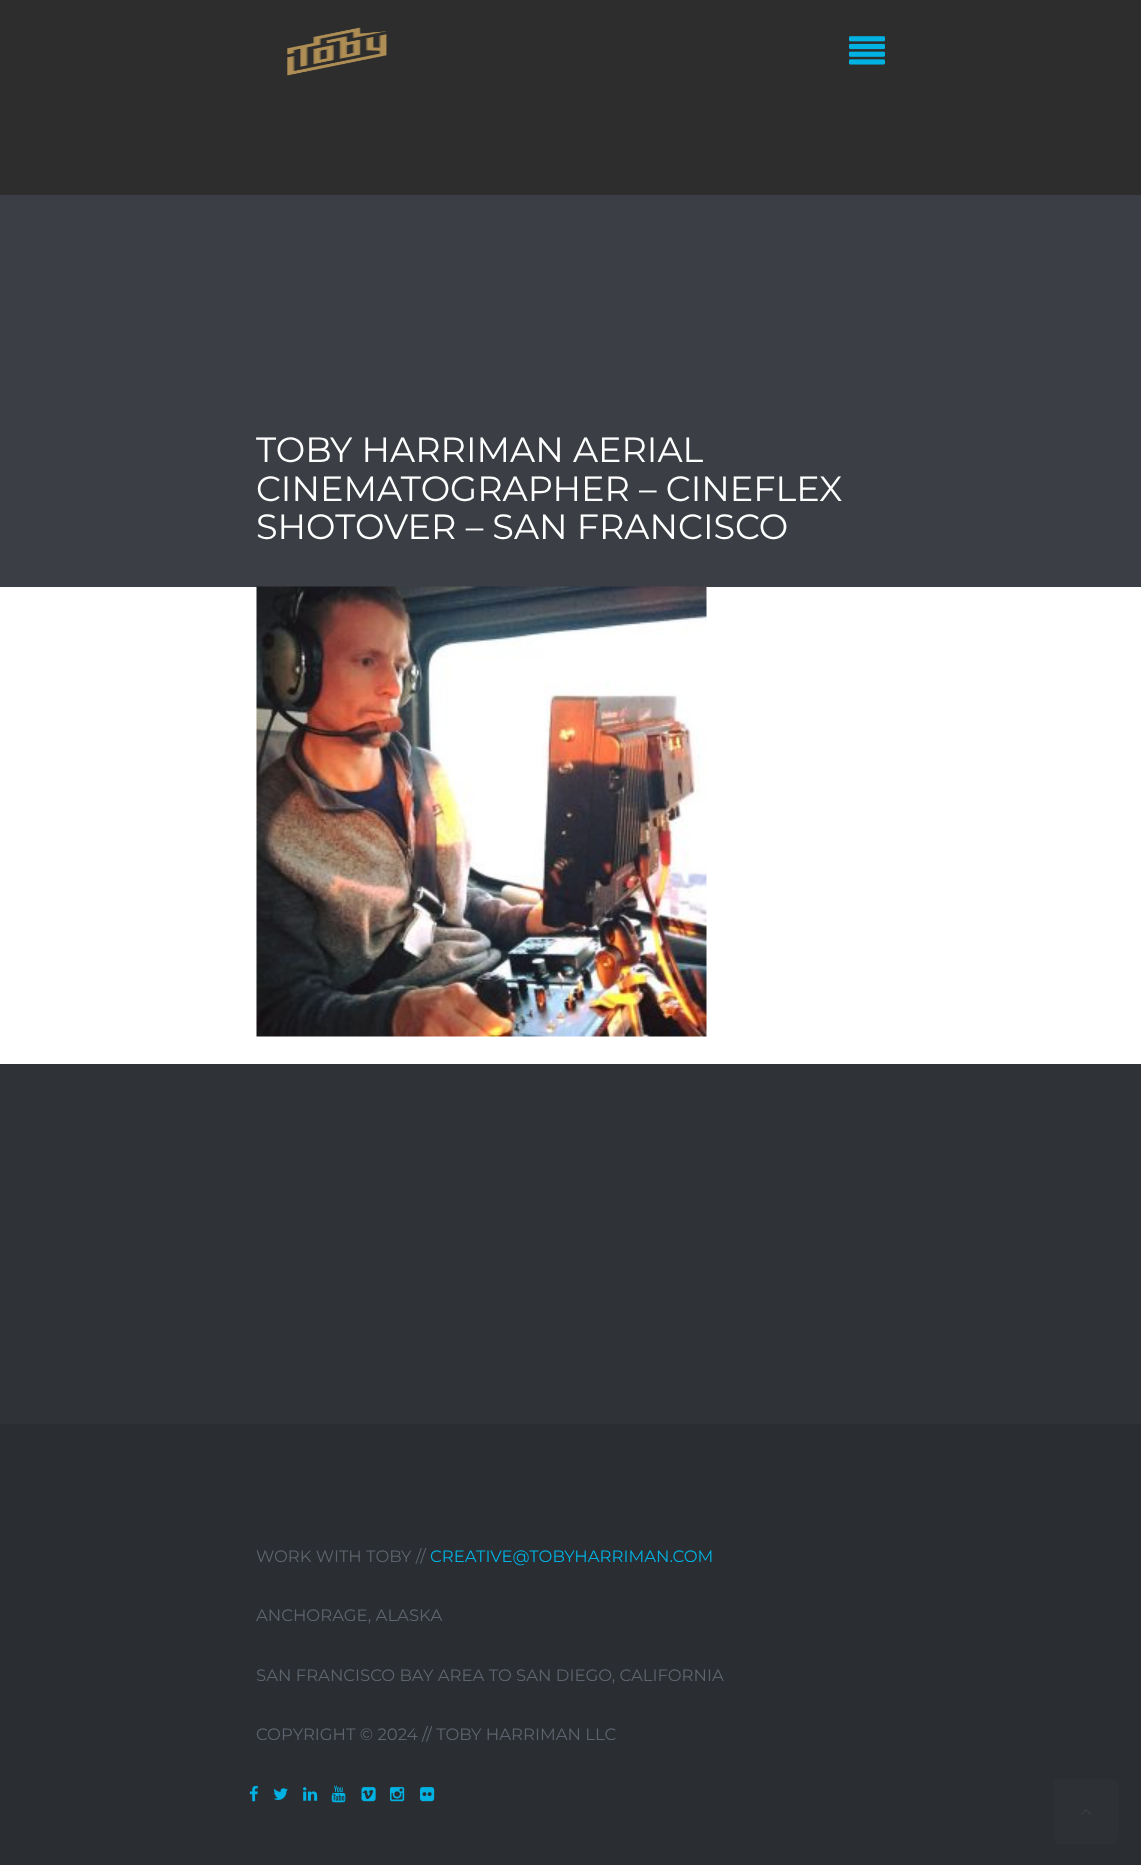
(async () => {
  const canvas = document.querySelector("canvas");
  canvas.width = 1141;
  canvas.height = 1865;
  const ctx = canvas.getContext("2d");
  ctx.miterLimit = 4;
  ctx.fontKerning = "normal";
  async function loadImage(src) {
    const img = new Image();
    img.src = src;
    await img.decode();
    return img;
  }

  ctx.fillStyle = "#ffffff";
  ctx.fillRect(0, 0, 1141, 1865);
  ctx.fillStyle = "#2d2d2d";
  ctx.fillRect(0, 0, 1141, 195);
  ctx.drawImage(await loadImage("img/1.png"), 287, 27, 100, 49);
  ctx.drawImage(await loadImage("img/2.png"), 849, 36, 36, 29);
  ctx.fillStyle = "#3b3f45";
  ctx.fillRect(0, 195, 1141, 392);
  ctx.drawImage(await loadImage("img/3.png"), 256, 586, 451, 451);
  ctx.fillStyle = "#2f3237";
  ctx.fillRect(0, 1064, 1141, 360);
  ctx.fillStyle = "#2a2d32";
  ctx.fillRect(0, 1424, 1141, 441);
  ctx.drawImage(await loadImage("img/4.png"), 249, 1785, 9, 17);
  ctx.drawImage(await loadImage("img/5.png"), 273, 1788, 15, 12);
  ctx.drawImage(await loadImage("img/6.png"), 303, 1787, 15, 14);
  ctx.drawImage(await loadImage("img/7.png"), 331, 1785, 15, 18);
  ctx.drawImage(await loadImage("img/8.png"), 361, 1787, 15, 15);
  ctx.drawImage(await loadImage("img/9.png"), 390, 1787, 15, 15);
  ctx.drawImage(await loadImage("img/10.png"), 420, 1787, 15, 15);
  ctx.fillStyle = "#2d3035";
  ctx.beginPath();
  ctx.roundRect(1053, 1779, 66, 65, 6);
  ctx.fill();
  ctx.drawImage(await loadImage("img/11.png"), 1081, 1809, 11, 6);
  ctx.font = "35.1px Montserrat";
  ctx.fillStyle = "#ffffff";
  for (const [text, x, y] of [
    ["TOBY HARRIMAN AERIAL", 256, 462],
    ["CINEMATOGRAPHER – CINEFLEX", 256, 501],
    ["SHOTOVER – SAN FRANCISCO", 256, 539],
  ]) {
    ctx.fillText(text, x, y);
  }
  ctx.font = "16.5px Montserrat";
  ctx.fillStyle = "#5e646e";
  ctx.fillText("WORK WITH TOBY //", 256, 1562);
  ctx.fillStyle = "#00b1e1";
  ctx.fillText("CREATIVE@TOBYHARRIMAN.COM", 430, 1562);
  ctx.fillStyle = "#5e646e";
  for (const [text, x, y] of [
    ["ANCHORAGE, ALASKA", 256, 1621],
    ["SAN FRANCISCO BAY AREA TO SAN DIEGO, CALIFORNIA", 256, 1681],
    ["COPYRIGHT © 2024 // TOBY HARRIMAN LLC", 256, 1740],
  ]) {
    ctx.fillText(text, x, y);
  }
})();
